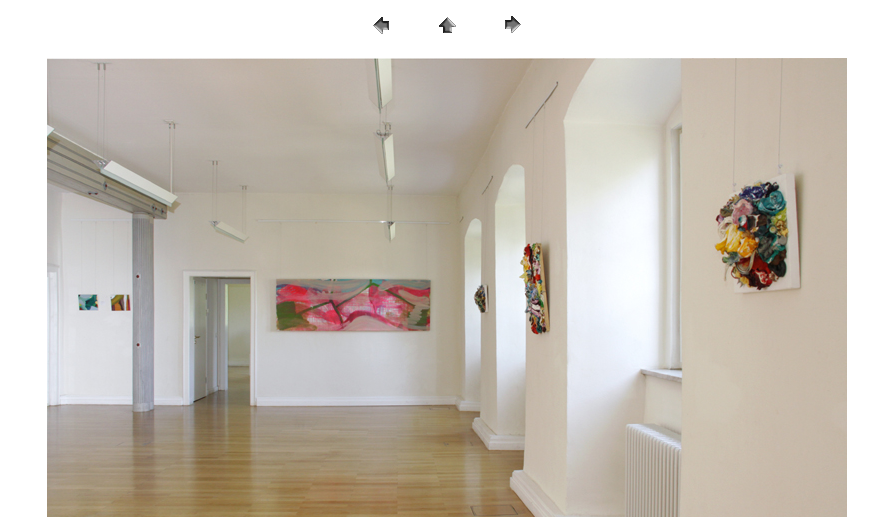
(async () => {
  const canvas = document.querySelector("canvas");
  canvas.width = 893;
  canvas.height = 517;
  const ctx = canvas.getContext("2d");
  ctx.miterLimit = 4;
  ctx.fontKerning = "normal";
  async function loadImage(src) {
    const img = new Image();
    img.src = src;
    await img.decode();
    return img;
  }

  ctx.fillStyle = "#ffffff";
  ctx.fillRect(0, 0, 893, 517);
  ctx.drawImage(await loadImage("img/1.png"), 373, 17, 16, 17);
  ctx.drawImage(await loadImage("img/2.png"), 439, 17, 17, 16);
  ctx.drawImage(await loadImage("img/3.png"), 505, 16, 16, 17);
  ctx.drawImage(await loadImage("img/4.png"), 47, 58, 800, 459);
})();
